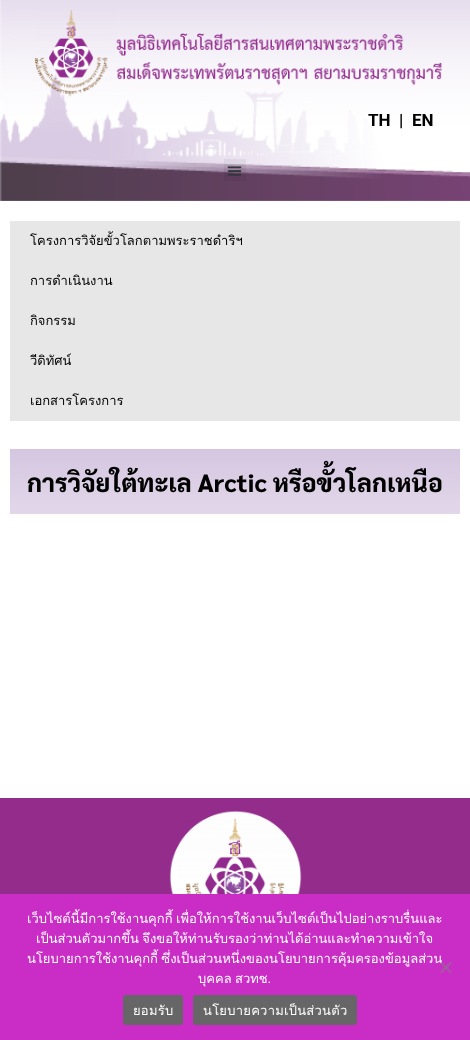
(async () => {
  const canvas = document.querySelector("canvas");
  canvas.width = 470;
  canvas.height = 1040;
  const ctx = canvas.getContext("2d");
  ctx.miterLimit = 4;
  ctx.fontKerning = "normal";
  async function loadImage(src) {
    const img = new Image();
    img.src = src;
    await img.decode();
    return img;
  }
  let path;

  ctx.fillStyle = "#ffffff";
  ctx.fillRect(0, 0, 470, 1040);
  ctx.drawImage(await loadImage("img/1.png"), 0, 0, 470, 201);
  ctx.drawImage(await loadImage("img/2.png"), 34, 9, 408, 88);
  ctx.fillStyle = "rgba(0, 0, 0, 0.05)";
  ctx.fillRect(224, 159, 22, 22);
  ctx.drawImage(await loadImage("img/3.png"), 227, 166, 15, 10);
  ctx.fillStyle = "#e7e7e7";
  ctx.fillRect(10, 221, 450, 200);
  ctx.drawImage(await loadImage("img/4.png"), 10, 449, 450, 65);
  ctx.fillStyle = "#942c8c";
  ctx.fillRect(0, 798, 470, 96);
  ctx.drawImage(await loadImage("img/5.png"), 169, 810, 133, 84);
  ctx.fillStyle = "#ca2dc6";
  ctx.fillRect(0, 894, 470, 146);
  ctx.fillStyle = "#666666";
  ctx.beginPath();
  ctx.roundRect(123, 995, 60, 30, 3);
  ctx.fill();
  ctx.beginPath();
  ctx.roundRect(193, 995, 164, 30, 3);
  ctx.fill();
  ctx.font = "bold 17px Roboto";
  ctx.fillStyle = "#000000";
  for (const [text, x, y] of [
    ["TH", 368, 126],
    ["|", 399, 126],
    ["EN", 412, 126],
  ]) {
    ctx.fillText(text, x, y);
  }
  ctx.font = "13px Loma";
  for (const [text, x, y] of [
    ["โครงการวิจัยขั้วโลกตามพระราชดำริฯ", 30, 245],
    ["การดำเนินงาน", 30, 285],
    ["กิจกรรม", 30, 325],
    ["วีดิทัศน์", 30, 365],
    ["เอกสารโครงการ", 30, 405],
  ]) {
    ctx.fillText(text, x, y);
  }
  ctx.font = "800 25px Sarabun";
  ctx.fillText("การวิจัยใต้ทะเล Arctic หรือขั้วโลกเหนือ", 27, 492);
  ctx.wordSpacing = "-1px";
  ctx.font = "13px Loma";
  ctx.fillStyle = "#ffffff";
  for (const [text, x, y] of [
    ["เว็บไซต์นี้มีการใช้งานคุกกี้ เพื่อให้การใช้งานเว็บไซต์เป็นไปอย่างราบรื่นและ", 27, 923],
    ["เป็นส่วนตัวมากขึ้น จึงขอให้ท่านรับรองว่าท่านได้อ่านและทำความเข้าใจ", 36, 943],
    ["นโยบายการใช้งานคุกกี้ ซึ่งเป็นส่วนหนึ่งของนโยบายการคุ้มครองข้อมูลส่วน", 27, 963],
    ["บุคคล สวทช.", 198, 983],
  ]) {
    ctx.fillText(text, x, y);
  }
  ctx.fillStyle = "#a557a3";
  path = new Path2D("M450.5 961.5L452 963L441.5 973.5L440 972Z");
  ctx.fill(path);
  ctx.fillStyle = "rgba(128, 128, 128, 0.5)";
  path = new Path2D("M440 963L441.5 961.5L452 972L450.5 973.5Z");
  ctx.fill(path);
  ctx.letterSpacing = "0.25px";
  ctx.wordSpacing = "0px";
  ctx.fillStyle = "#ffffff";
  ctx.fillText("ยอมรับ", 133, 1015);
  ctx.fillText("นโยบายความเป็นส่วนตัว", 203, 1015);
})();
